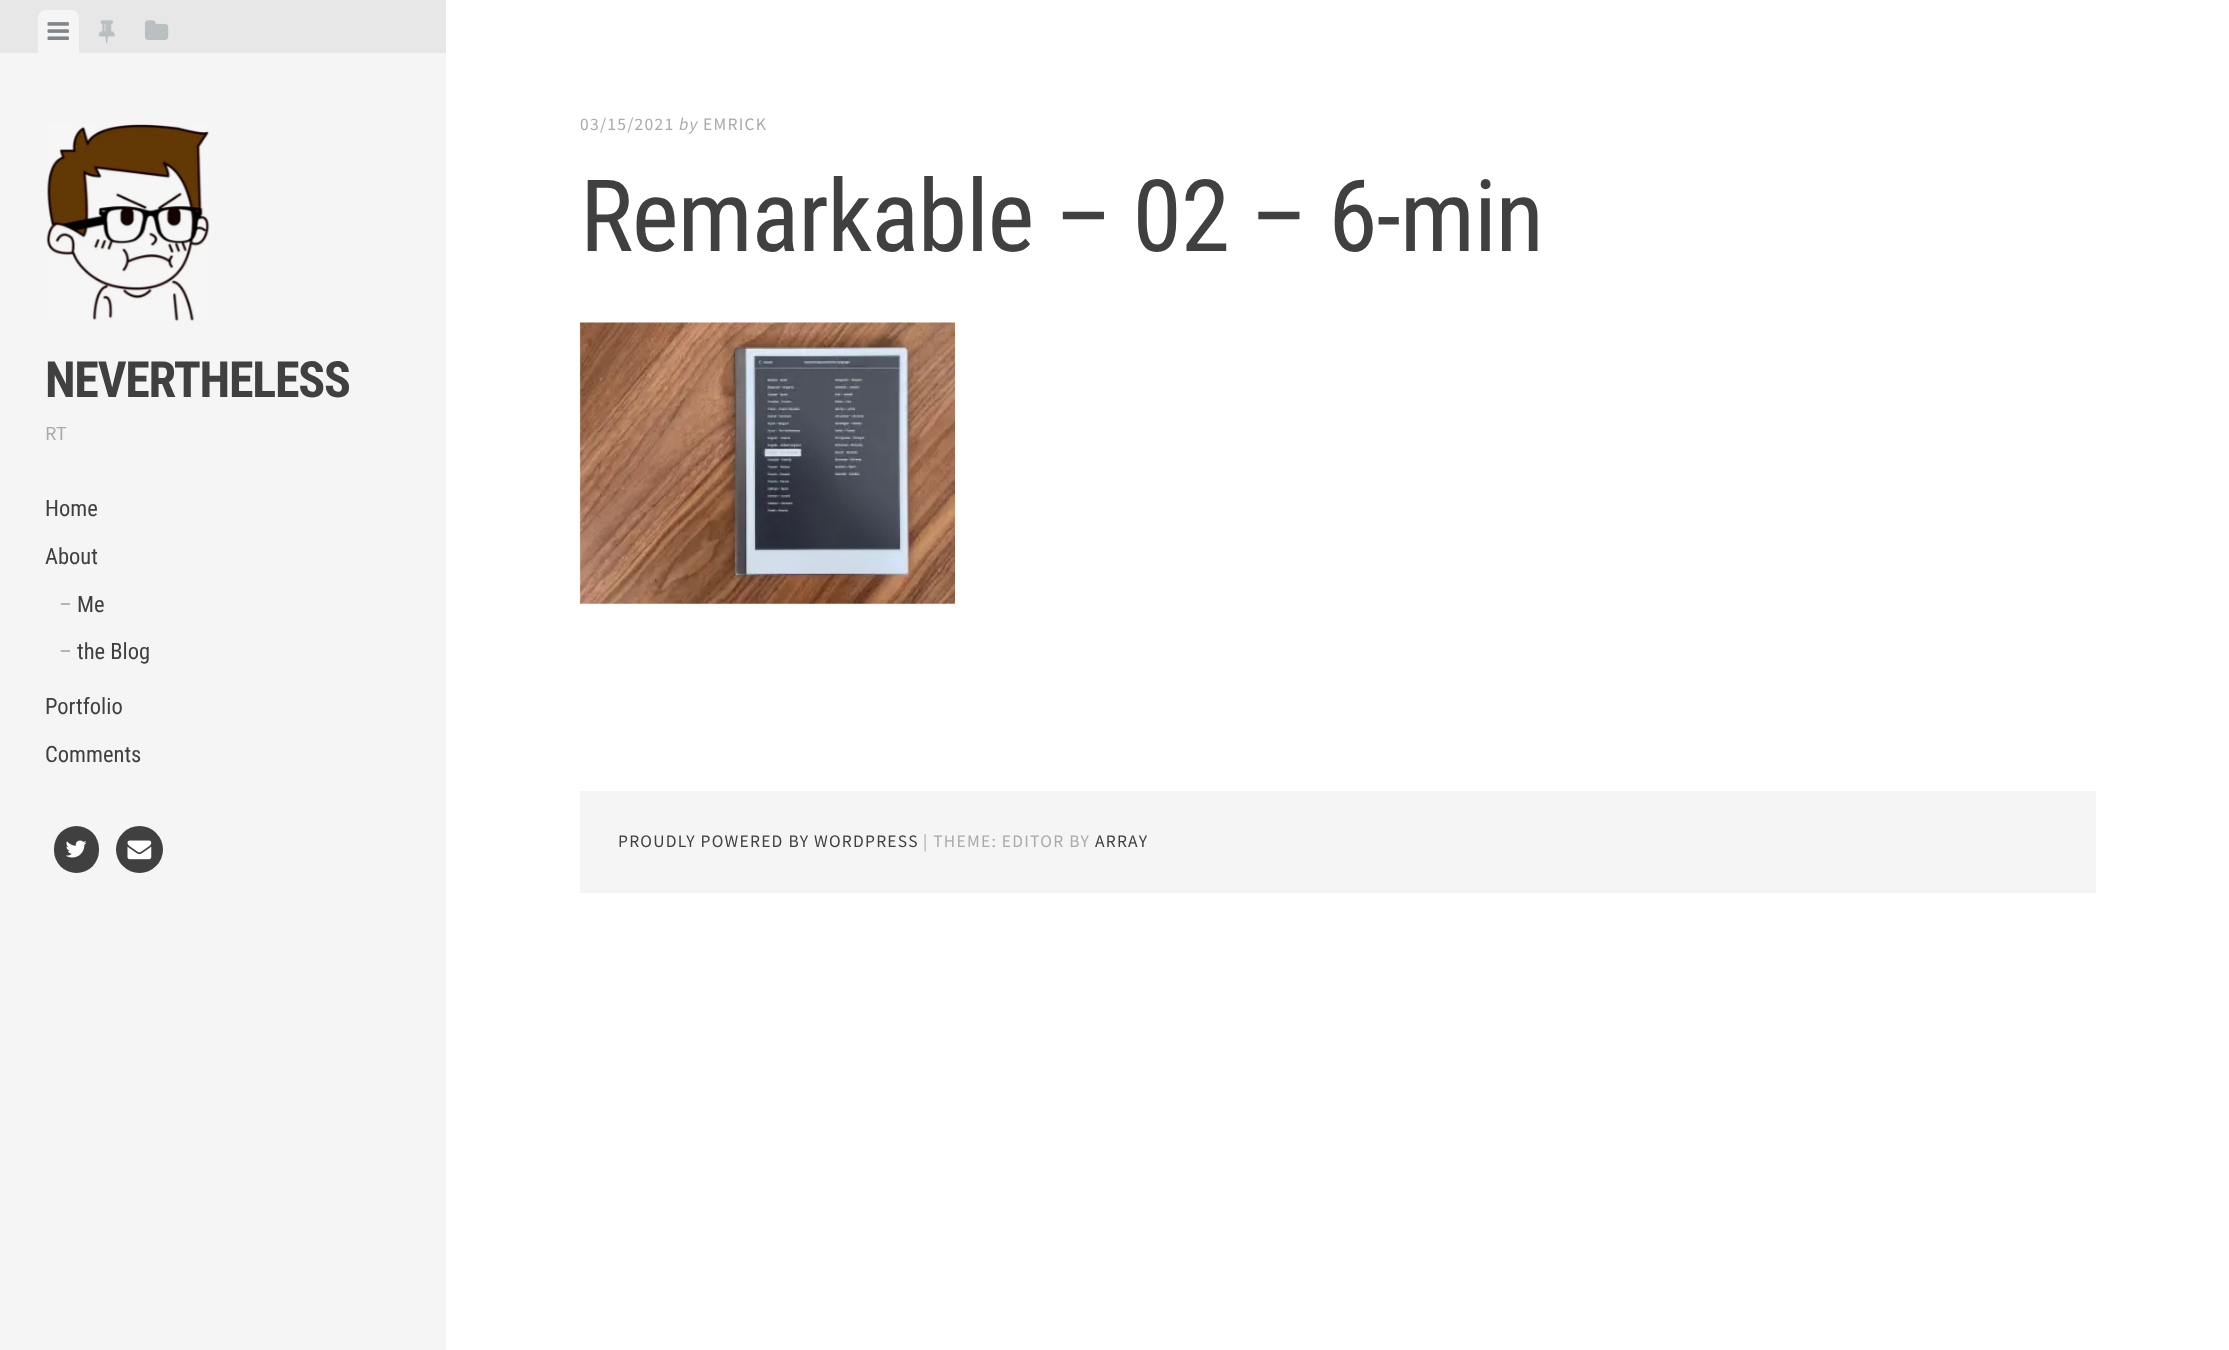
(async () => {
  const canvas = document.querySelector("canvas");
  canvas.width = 2229;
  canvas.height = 1350;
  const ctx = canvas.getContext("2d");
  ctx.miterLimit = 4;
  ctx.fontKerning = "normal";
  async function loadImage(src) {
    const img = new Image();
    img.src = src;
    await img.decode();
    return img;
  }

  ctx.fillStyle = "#ffffff";
  ctx.fillRect(0, 0, 2229, 1350);
  ctx.drawImage(await loadImage("img/1.png"), 579, 322, 376, 282);
  ctx.fillStyle = "#f5f5f5";
  ctx.fillRect(0, 53, 446, 1297);
  ctx.fillStyle = "#e7e7e7";
  ctx.fillRect(0, 0, 446, 53);
  ctx.fillStyle = "#f5f5f5";
  ctx.beginPath();
  ctx.roundRect(38, 10, 41, 43, [8, 8, 0, 0]);
  ctx.fill();
  ctx.drawImage(await loadImage("img/2.png"), 47, 22, 22, 18);
  ctx.drawImage(await loadImage("img/3.png"), 98, 20, 17, 24);
  ctx.drawImage(await loadImage("img/4.png"), 145, 20, 24, 20);
  ctx.drawImage(await loadImage("img/5.png"), 46, 123, 164, 198);
  ctx.fillStyle = "#404040";
  ctx.beginPath();
  ctx.roundRect(54, 826, 45, 47, 22.5);
  ctx.fill();
  ctx.drawImage(await loadImage("img/6.png"), 65, 840, 22, 18);
  ctx.beginPath();
  ctx.arc(139.5, 849.5, 23.5, 0, Math.PI * 2);
  ctx.fill();
  ctx.drawImage(await loadImage("img/7.png"), 127, 840, 25, 20);
  ctx.fillStyle = "#f5f5f5";
  ctx.fillRect(580, 791, 1516, 102);
  ctx.letterSpacing = "1.25px";
  ctx.font = "17.5px Source Sans Pro";
  ctx.fillStyle = "#aaaaaa";
  ctx.fillText("03/15/2021", 580, 130);
  ctx.font = "italic 17.5px Source Sans Pro";
  ctx.fillText("by", 679, 130);
  ctx.font = "17.5px Source Sans Pro";
  ctx.fillText("EMRICK", 703, 130);
  ctx.letterSpacing = "-1.25px";
  ctx.font = "100px Roboto Condensed";
  ctx.fillStyle = "#404040";
  ctx.fillText("Remarkable – 02 – 6-min", 580, 251);
  ctx.font = "bold 50px Roboto Condensed";
  ctx.fillText("NEVERTHELESS", 45, 397);
  ctx.letterSpacing = "0px";
  ctx.font = "20px Source Sans Pro";
  ctx.fillStyle = "#aaaaaa";
  ctx.fillText("RT", 45, 440);
  ctx.font = "22.5px Roboto Condensed";
  ctx.fillStyle = "#404040";
  ctx.fillText("Home", 45, 516);
  ctx.fillText("About", 45, 564);
  ctx.fillStyle = "#aaaaaa";
  ctx.fillText("–", 59, 612);
  ctx.fillStyle = "#404040";
  ctx.fillText("Me", 77, 612);
  ctx.fillStyle = "#aaaaaa";
  ctx.fillText("–", 59, 659);
  ctx.fillStyle = "#404040";
  for (const [text, x, y] of [
    ["the Blog", 77, 659],
    ["Portfolio", 45, 714],
    ["Comments", 45, 762],
  ]) {
    ctx.fillText(text, x, y);
  }
  ctx.letterSpacing = "1.25px";
  ctx.font = "17.5px Source Sans Pro";
  ctx.fillText("PROUDLY POWERED BY WORDPRESS", 618, 847);
  ctx.fillStyle = "#aaaaaa";
  ctx.fillText("| THEME: EDITOR BY", 923, 847);
  ctx.fillStyle = "#404040";
  ctx.fillText("ARRAY", 1095, 847);
})();
